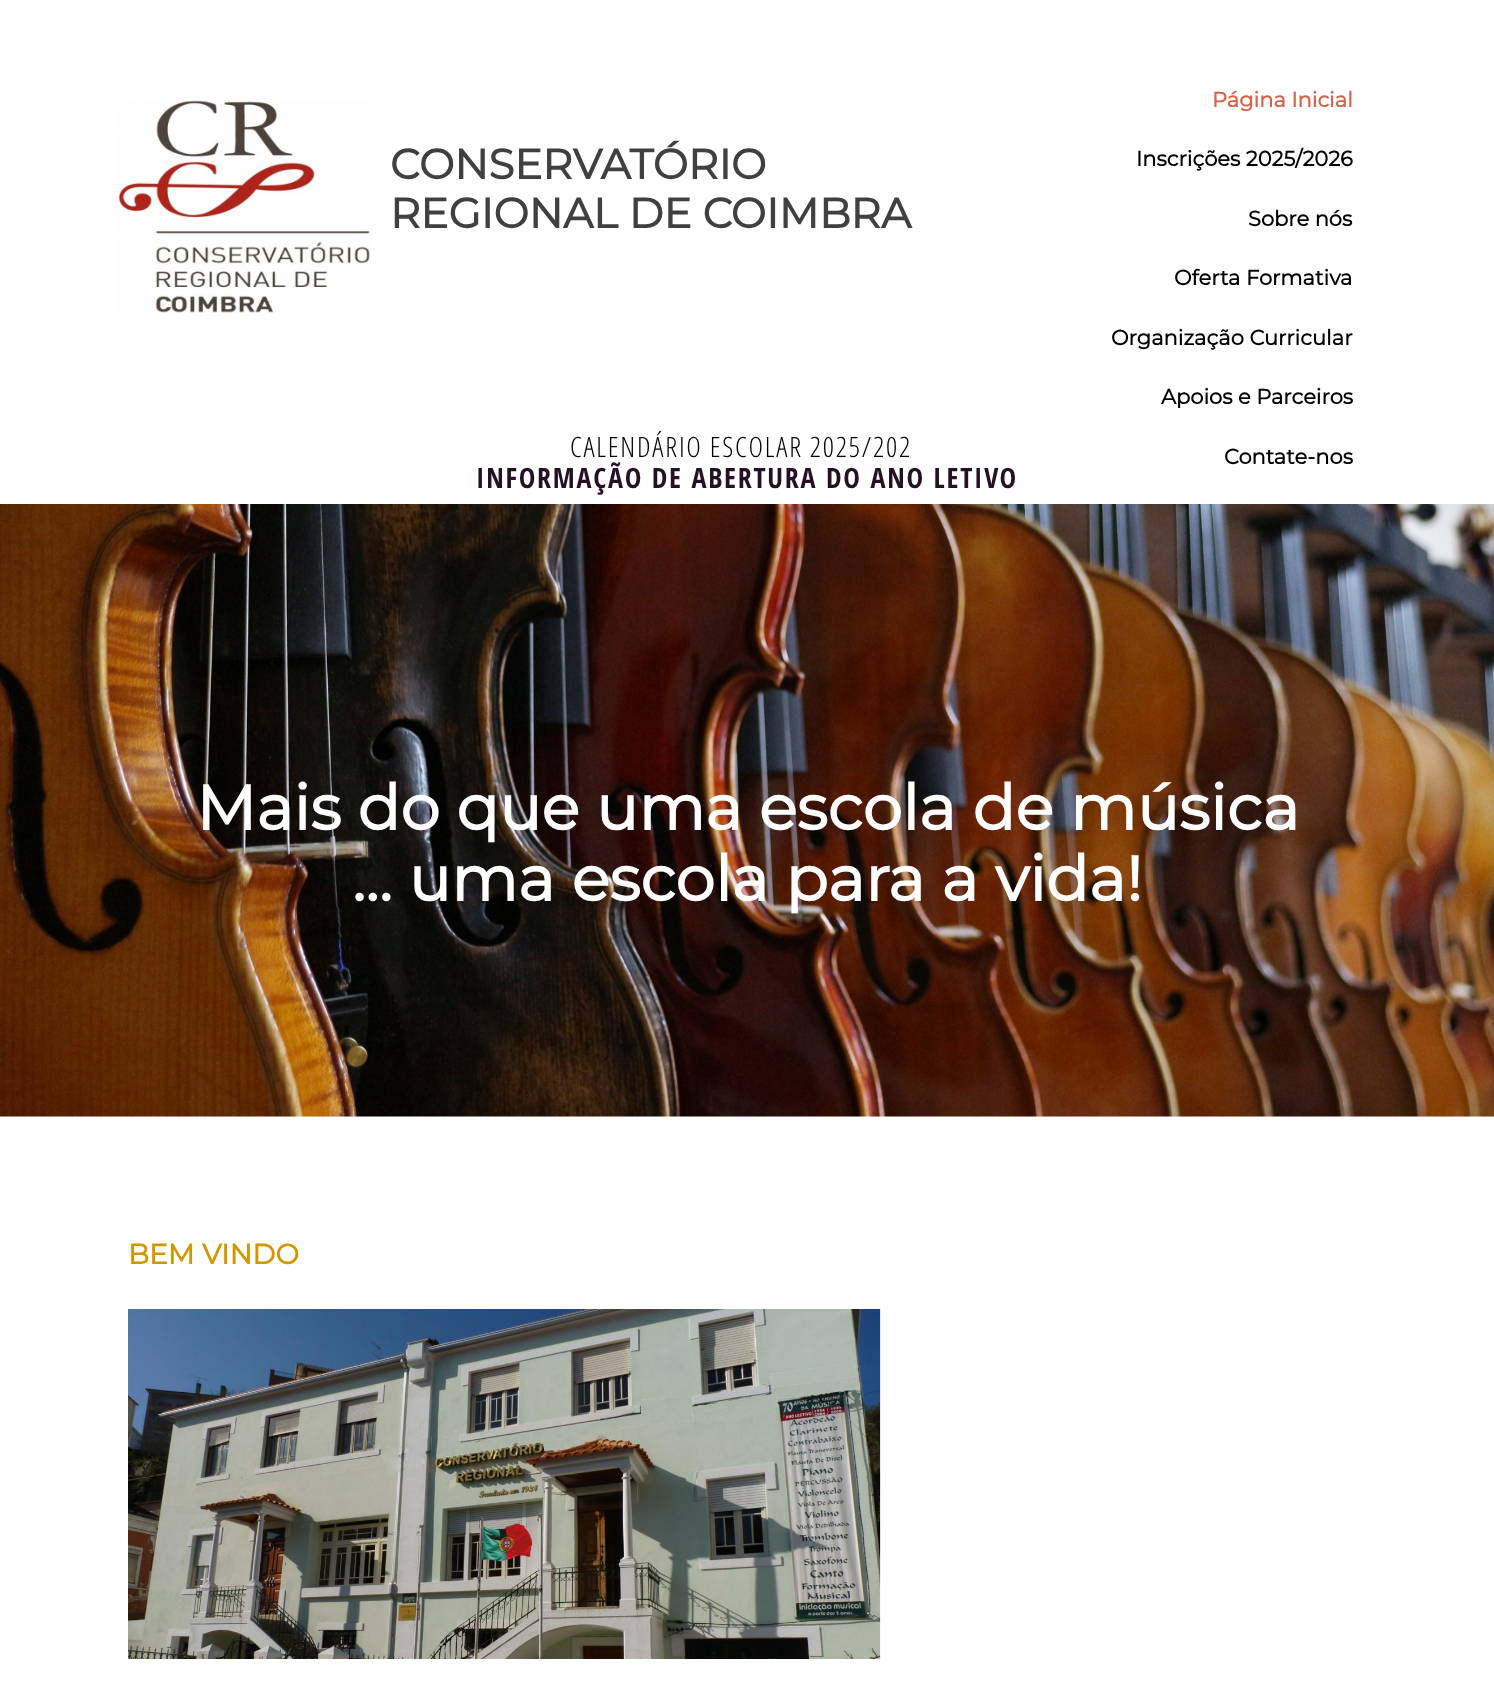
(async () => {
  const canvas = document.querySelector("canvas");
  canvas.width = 1494;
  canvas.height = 1696;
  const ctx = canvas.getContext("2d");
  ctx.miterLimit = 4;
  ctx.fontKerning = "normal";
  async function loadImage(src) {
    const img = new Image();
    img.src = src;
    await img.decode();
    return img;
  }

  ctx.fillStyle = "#ffffff";
  ctx.fillRect(0, 0, 1494, 1696);
  ctx.drawImage(await loadImage("img/1.png"), 116, 100, 254, 213);
  ctx.drawImage(await loadImage("img/2.png"), 0, 504, 1494, 613);
  ctx.drawImage(await loadImage("img/3.png"), 128, 1309, 753, 350);
  ctx.font = "bold 42px Montserrat";
  ctx.fillStyle = "#404040";
  for (const [text, x, y] of [
    ["C", 390, 179],
    ["ONSERVATÓRIO", 419, 179],
    ["REGIONAL DE COIMBRA", 390, 228],
  ]) {
    ctx.fillText(text, x, y);
  }
  ctx.font = "bold 21px Montserrat";
  ctx.fillStyle = "#d6614a";
  ctx.fillText("Página Inicial", 1212, 107);
  ctx.fillStyle = "#000000";
  for (const [text, x, y] of [
    ["Inscrições 2025/2026", 1136, 166],
    ["Sobre nós", 1248, 226],
    ["Oferta Formativa", 1174, 285],
    ["Organização Curricular", 1111, 345],
    ["Apoios e Parceiros", 1161, 404],
    ["Contate-nos", 1224, 464],
  ]) {
    ctx.fillText(text, x, y);
  }
  ctx.letterSpacing = "1.75px";
  ctx.font = "300 28px Open Sans Condensed";
  ctx.fillStyle = "#010008";
  ctx.fillText("CALENDÁRIO ESCOLAR 2025/202", 570, 457);
  ctx.font = "bold 28px Open Sans Condensed";
  ctx.fillStyle = "#241224";
  ctx.fillText("INFORMAÇÃO DE ABERTURA DO ANO LETIVO", 476, 488);
  ctx.letterSpacing = "0px";
  ctx.font = "bold 63px Montserrat";
  ctx.fillStyle = "#ffffff";
  ctx.fillText("Mais do que uma escola de música", 196, 830);
  ctx.fillText("... uma escola para a vida!", 352, 901);
  ctx.font = "bold 28px Montserrat";
  ctx.fillStyle = "#d19600";
  ctx.fillText("BEM VINDO", 128, 1264);
})();
